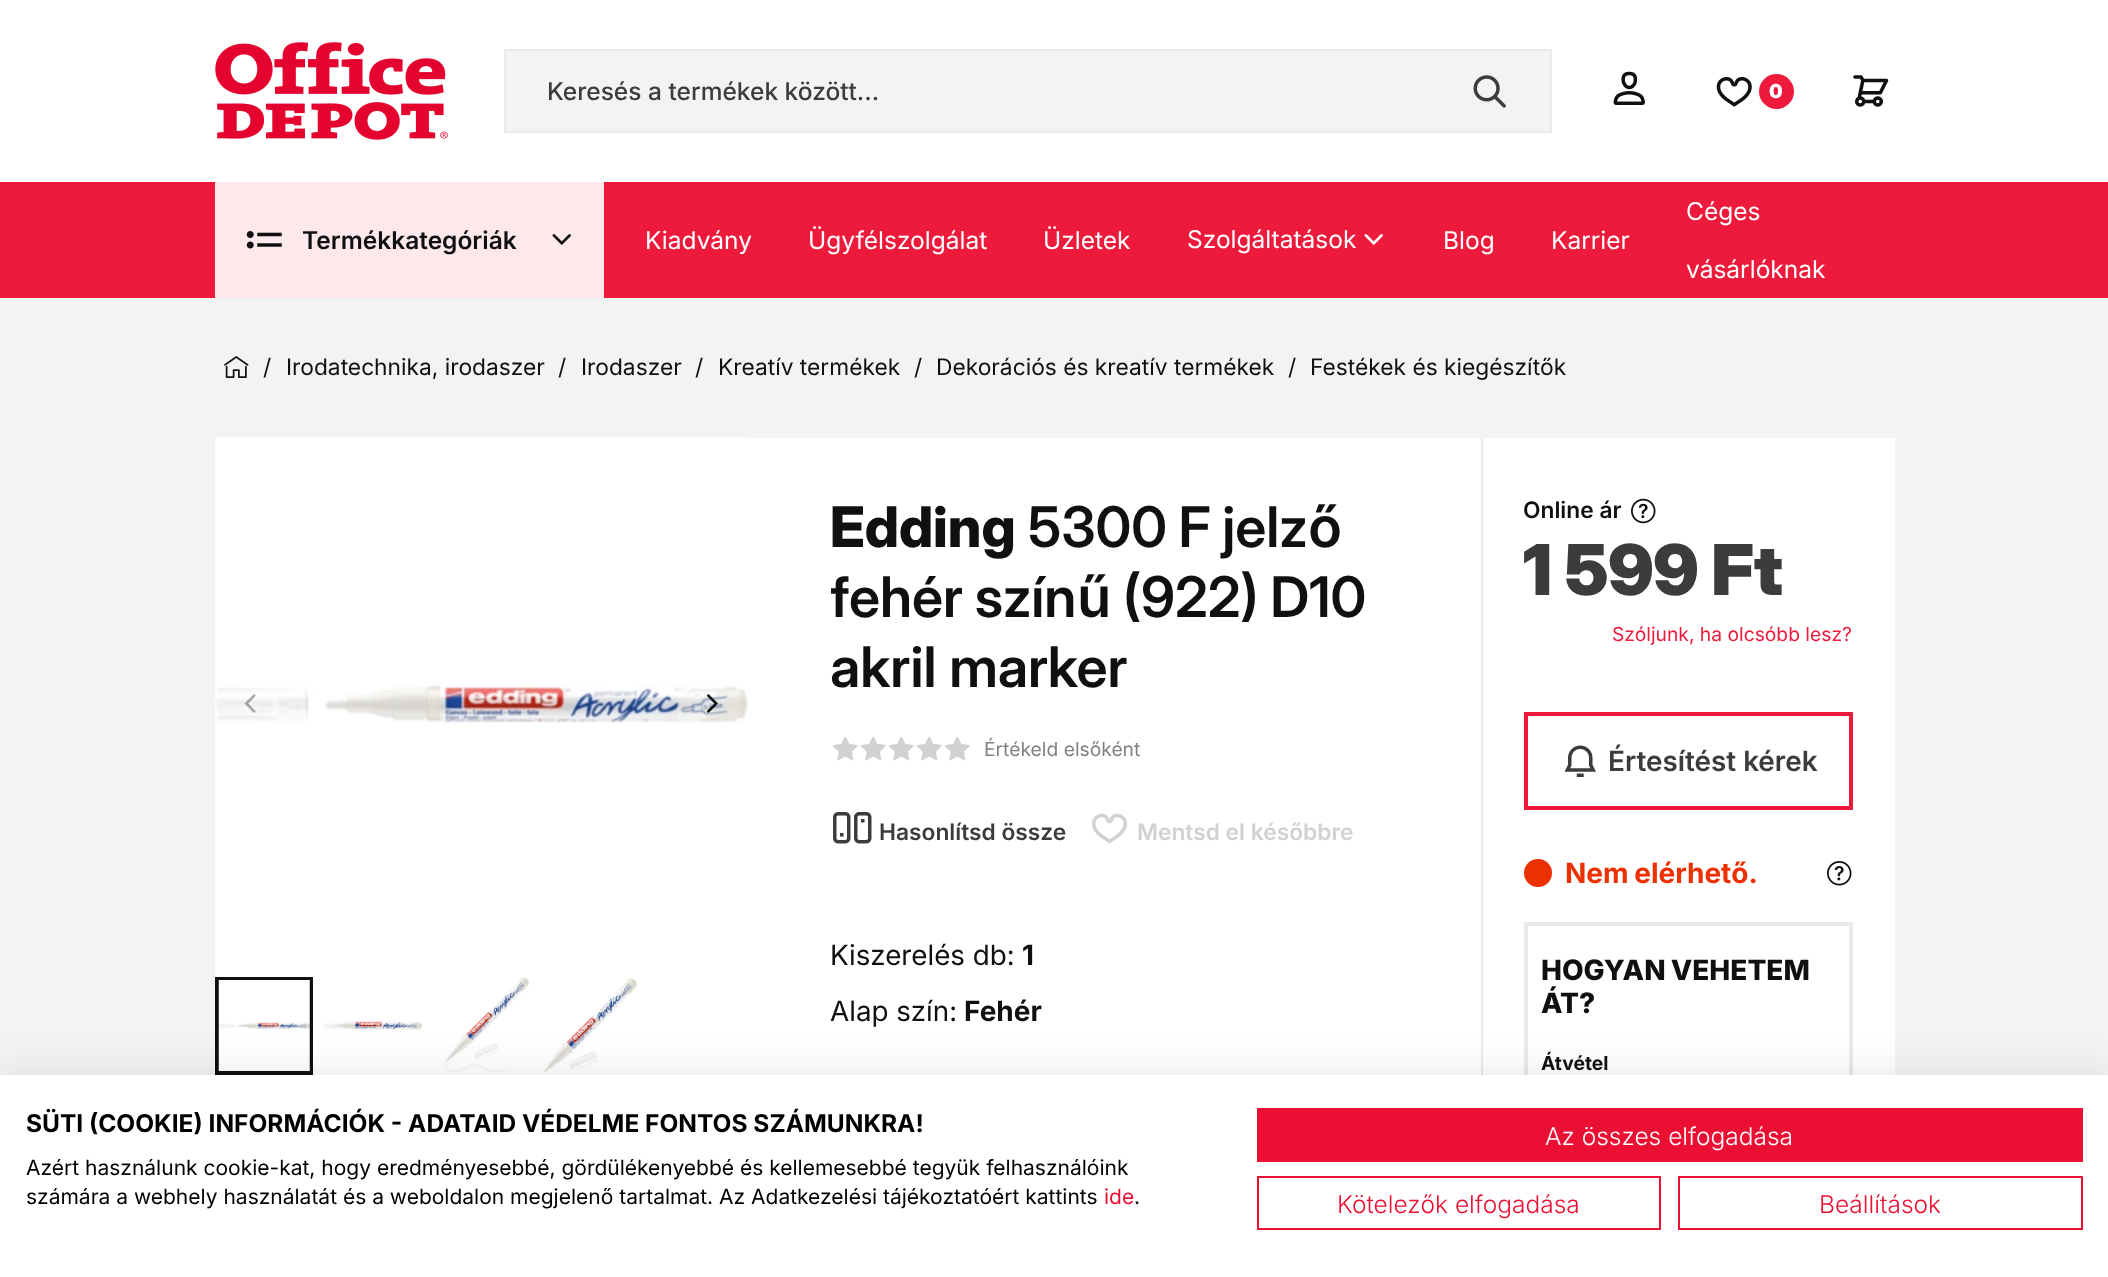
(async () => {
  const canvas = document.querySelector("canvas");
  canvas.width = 2108;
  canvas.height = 1277;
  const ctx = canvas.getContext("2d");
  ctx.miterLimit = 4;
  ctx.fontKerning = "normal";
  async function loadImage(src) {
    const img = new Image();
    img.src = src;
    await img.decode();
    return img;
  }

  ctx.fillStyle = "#f3f3f2";
  ctx.fillRect(0, 0, 2108, 1277);
  ctx.fillStyle = "#ffffff";
  ctx.fillRect(0, 0, 2108, 182);
  ctx.drawImage(await loadImage("img/1.png"), 215, 42, 233, 98);
  ctx.fillStyle = "#f3f3f2";
  ctx.beginPath();
  ctx.rect(505, 50, 1046, 82);
  ctx.fill();
  ctx.strokeStyle = "#eaeaea";
  ctx.lineWidth = 2;
  ctx.stroke();
  ctx.drawImage(await loadImage("img/2.png"), 1473, 75, 33, 33);
  ctx.drawImage(await loadImage("img/3.png"), 1613, 71, 32, 34);
  ctx.drawImage(await loadImage("img/4.png"), 1716, 77, 36, 30);
  ctx.fillStyle = "#ed1a3b";
  ctx.beginPath();
  ctx.arc(1776.5, 91.5, 17.5, 0, Math.PI * 2);
  ctx.fill();
  ctx.drawImage(await loadImage("img/5.png"), 1853, 75, 36, 32);
  ctx.fillRect(0, 182, 2108, 116);
  ctx.fillStyle = "#fde8eb";
  ctx.fillRect(215, 182, 389, 116);
  ctx.drawImage(await loadImage("img/6.png"), 246, 231, 36, 18);
  ctx.drawImage(await loadImage("img/7.png"), 552, 234, 19, 11);
  ctx.drawImage(await loadImage("img/8.png"), 1364, 234, 19, 11);
  ctx.drawImage(await loadImage("img/9.png"), 224, 356, 25, 22);
  ctx.fillStyle = "#ffffff";
  ctx.fillRect(215, 438, 1680, 637);
  ctx.drawImage(await loadImage("img/10.png"), 215, 437, 533, 286);
  ctx.drawImage(await loadImage("img/11.png"), 244, 694, 12, 19);
  ctx.fillStyle = "rgba(255, 255, 255, 0.25)";
  ctx.fillRect(677, 686, 70, 36);
  ctx.drawImage(await loadImage("img/12.png"), 707, 694, 11, 19);
  ctx.strokeStyle = "#101010";
  ctx.lineWidth = 4;
  ctx.strokeRect(217, 979, 94, 94);
  ctx.drawImage(await loadImage("img/13.png"), 218, 980, 92, 91);
  ctx.drawImage(await loadImage("img/14.png"), 324, 1021, 98, 9);
  ctx.drawImage(await loadImage("img/15.png"), 444, 977, 86, 95);
  ctx.drawImage(await loadImage("img/16.png"), 544, 978, 93, 94);
  ctx.drawImage(await loadImage("img/17.png"), 832, 736, 26, 25);
  ctx.drawImage(await loadImage("img/17.png"), 860, 736, 26, 25);
  ctx.drawImage(await loadImage("img/17.png"), 888, 736, 26, 25);
  ctx.drawImage(await loadImage("img/17.png"), 916, 736, 26, 25);
  ctx.drawImage(await loadImage("img/17.png"), 944, 736, 26, 25);
  ctx.drawImage(await loadImage("img/18.png"), 833, 812, 39, 32);
  ctx.drawImage(await loadImage("img/19.png"), 1092, 813, 35, 31);
  ctx.fillStyle = "#eaeaea";
  ctx.fillRect(1481, 438, 2, 637);
  ctx.drawImage(await loadImage("img/20.png"), 1631, 498, 25, 26);
  ctx.strokeStyle = "#ed1a3b";
  ctx.strokeRect(1526, 714, 325, 94);
  ctx.drawImage(await loadImage("img/21.png"), 1564, 745, 32, 32);
  ctx.fillStyle = "#ec3000";
  ctx.beginPath();
  ctx.arc(1538, 873, 14, 0, Math.PI * 2);
  ctx.fill();
  ctx.drawImage(await loadImage("img/22.png"), 1827, 861, 25, 25);
  ctx.strokeStyle = "#eaeaea";
  ctx.strokeRect(1526, 924, 325, 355);
  ctx.fillStyle = "rgba(0, 0, 0, 0.1)";
  ctx.filter = "blur(21px)";
  ctx.beginPath();
  ctx.rect(0, 1075, 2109, 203);
  ctx.fill();
  ctx.filter = "none";
  ctx.fillStyle = "#ffffff";
  ctx.fillRect(0, 1075, 2108, 202);
  ctx.fillStyle = "#ea0f33";
  ctx.fillRect(1257, 1108, 826, 54);
  ctx.strokeStyle = "#ea0f33";
  ctx.lineWidth = 2;
  ctx.strokeRect(1258, 1177, 402, 52);
  ctx.strokeRect(1679, 1177, 403, 52);
  ctx.font = "500 24.5px Inter";
  ctx.fillStyle = "#3c3c3b";
  ctx.fillText("Keresés a termékek között...", 547, 100);
  ctx.font = "900 19.25px 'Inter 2'";
  ctx.fillStyle = "#ffffff";
  ctx.fillText("0", 1769, 98);
  ctx.font = "600 24.5px Inter";
  ctx.fillStyle = "#101010";
  ctx.fillText("Termékkategóriák", 302, 249);
  ctx.font = "24.5px Inter";
  ctx.fillStyle = "#ffffff";
  for (const [text, x, y] of [
    ["Kiadvány", 645, 249],
    ["Ügyfélszolgálat", 808, 249],
    ["Üzletek", 1043, 249],
    ["Szolgáltatások", 1187, 248],
    ["Blog", 1443, 249],
    ["Karrier", 1551, 249],
    ["Céges", 1686, 220],
    ["vásárlóknak", 1686, 278],
  ]) {
    ctx.fillText(text, x, y);
  }
  ctx.font = "22.75px Inter";
  ctx.fillStyle = "#101010";
  for (const [text, x, y] of [
    ["/", 263, 375],
    ["Irodatechnika, irodaszer", 286, 375],
    ["/", 558, 375],
    ["Irodaszer", 581, 375],
    ["/", 695, 375],
    ["Kreatív termékek", 718, 375],
    ["/", 914, 375],
    ["Dekorációs és kreatív termékek", 936, 375],
    ["/", 1288, 375],
    ["Festékek és kiegészítők", 1310, 375],
  ]) {
    ctx.fillText(text, x, y);
  }
  ctx.font = "800 56px Inter";
  ctx.fillText("Edding", 830, 547);
  ctx.wordSpacing = "-1px";
  ctx.font = "600 56px 'Inter 2'";
  ctx.fillText("5300 F jelz", 1028, 547);
  ctx.wordSpacing = "0px";
  ctx.font = "600 56px Inter";
  ctx.fillText("ő", 1308, 547);
  ctx.save();
  ctx.beginPath();
  ctx.rect(831, 494, 608, 210);
  ctx.clip();
  ctx.wordSpacing = "-1px";
  ctx.font = "600 56px 'Inter 2'";
  ctx.fillText("fehér szín", 830, 617);
  ctx.restore();
  ctx.fillText("ű", 1077, 617);
  ctx.wordSpacing = "-1px";
  ctx.font = "600 56px 'Inter 2'";
  ctx.fillText("(922) D10", 1123, 617);
  ctx.wordSpacing = "0px";
  ctx.fillText("akril marker", 830, 687);
  ctx.font = "19.25px Inter";
  ctx.fillStyle = "#80827d";
  ctx.fillText("Értékeld elsőként", 984, 756);
  ctx.font = "600 22.75px Inter";
  ctx.fillStyle = "#3c3c3b";
  ctx.fillText("Hasonlítsd össze", 879, 840);
  ctx.fillStyle = "#d1d1d1";
  ctx.fillText("Mentsd el későbbre", 1137, 840);
  ctx.font = "28px 'Inter 2'";
  ctx.fillStyle = "#101010";
  ctx.fillText("Kiszerelés db:", 830, 965);
  ctx.font = "bold 28px Inter";
  ctx.fillText("1", 1022, 965);
  ctx.font = "28px 'Inter 2'";
  ctx.fillText("Alap szín:", 830, 1021);
  ctx.font = "bold 28px 'Inter 2'";
  ctx.fillText("Fehér", 964, 1021);
  ctx.font = "600 22.75px Inter";
  ctx.fillText("Online ár", 1523, 518);
  ctx.font = "900 70px Inter";
  ctx.fillStyle = "#3c3c3b";
  ctx.fillText("1 599 Ft", 1523, 595);
  ctx.font = "19.25px Inter";
  ctx.fillStyle = "#ed1a3b";
  ctx.fillText("Szóljunk, ha olcsóbb lesz?", 1612, 641);
  ctx.font = "600 28px 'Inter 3'";
  ctx.fillStyle = "#3c3c3b";
  ctx.fillText("Értesítést kérek", 1608, 771);
  ctx.wordSpacing = "-1px";
  ctx.font = "bold 28px 'Inter 2'";
  ctx.fillStyle = "#ec3000";
  ctx.fillText("Nem elérhető.", 1565, 883);
  ctx.font = "800 28px 'Inter 2'";
  ctx.fillStyle = "#101010";
  ctx.fillText("HOGYAN VEHETEM", 1541, 980);
  ctx.wordSpacing = "0px";
  ctx.fillText("ÁT?", 1541, 1013);
  ctx.font = "bold 19.25px 'Inter 2'";
  ctx.fillText("Átvétel", 1541, 1070);
  ctx.font = "bold 24.5px 'Inter 2'";
  ctx.fillStyle = "#000000";
  ctx.fillText("SÜTI (COOKIE) INFORMÁCIÓK - ADATAID VÉDELME FONTOS SZÁMUNKRA!", 26, 1132);
  ctx.font = "21px Inter";
  ctx.fillText("Azért használunk cookie-kat, hogy eredményesebbé, gördülékenyebbé és kellemesebbé tegyük felhasználóink", 26, 1175);
  ctx.fillText("számára a webhely használatát és a weboldalon megjelenő tartalmat. Az Adatkezelési tájékoztatóért kattints", 26, 1204);
  ctx.fillStyle = "#ea0f33";
  ctx.fillText("ide", 1104, 1204);
  ctx.fillStyle = "#000000";
  ctx.fillText(".", 1134, 1204);
  ctx.font = "300 24.5px Inter";
  ctx.fillStyle = "#ffffff";
  ctx.fillText("Az összes elfogadása", 1545, 1145);
  ctx.fillStyle = "#ea0f33";
  ctx.fillText("Kötelezők elfogadása", 1337, 1213);
  ctx.fillText("Beállítások", 1819, 1213);
})();
